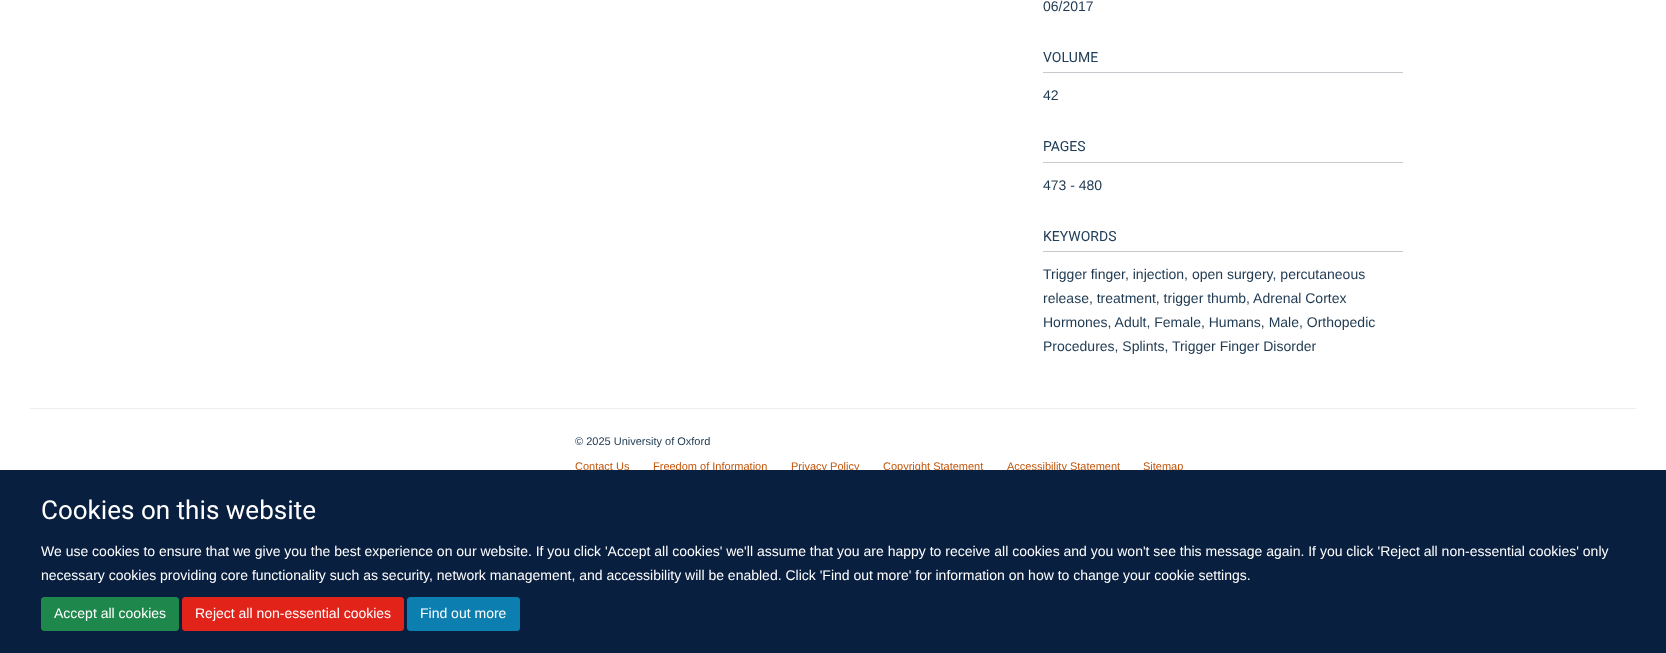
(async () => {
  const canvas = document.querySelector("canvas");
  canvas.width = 1666;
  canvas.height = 653;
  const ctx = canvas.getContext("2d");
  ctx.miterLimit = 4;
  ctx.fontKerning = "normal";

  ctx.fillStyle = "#ffffff";
  ctx.fillRect(0, 0, 1666, 653);
  for (const [x, y, w, h, color] of [
    [1043, 72, 360, 1, "#c6cacf"],
    [1043, 162, 360, 1, "#c6cacf"],
    [1043, 251, 360, 1, "#c6cacf"],
    [30, 408, 1606, 1, "#eeeeee"],
  ]) {
    ctx.fillStyle = color;
    ctx.fillRect(x, y, w, h);
  }
  ctx.font = "14px Liberation Sans";
  ctx.fillStyle = "#1d3850";
  ctx.fillText("06/2017", 1043, 11);
  ctx.font = "14px Heebo";
  ctx.fillStyle = "#203e58";
  ctx.fillText("VOLUME", 1043, 62);
  ctx.font = "14px Liberation Sans";
  ctx.fillStyle = "#1d3850";
  ctx.fillText("42", 1043, 100);
  ctx.font = "14px Heebo";
  ctx.fillStyle = "#203e58";
  ctx.fillText("PAGES", 1043, 151);
  ctx.font = "14px Liberation Sans";
  ctx.fillStyle = "#1d3850";
  ctx.fillText("473 - 480", 1043, 190);
  ctx.font = "14px Heebo";
  ctx.fillStyle = "#203e58";
  ctx.fillText("KEYWORDS", 1043, 241);
  ctx.font = "14px Liberation Sans";
  ctx.fillStyle = "#1d3850";
  for (const [text, x, y] of [
    ["Trigger finger, injection, open surgery, percutaneous", 1043, 279],
    ["release, treatment, trigger thumb, Adrenal Cortex", 1043, 303],
    ["Hormones, Adult, Female, Humans, Male, Orthopedic", 1043, 327],
    ["Procedures, Splints, Trigger Finger Disorder", 1043, 351],
  ]) {
    ctx.fillText(text, x, y);
  }
  ctx.font = "11px Liberation Sans";
  ctx.fillText("© 2025 University of Oxford", 575, 445);
  ctx.fillStyle = "#c1570e";
  for (const [text, x, y] of [
    ["Contact Us", 575, 470],
    ["Freedom of Information", 653, 470],
    ["Privacy Policy", 791, 470],
    ["Copyright Statement", 883, 470],
    ["Accessibility Statement", 1007, 470],
    ["Sitemap", 1143, 470],
  ]) {
    ctx.fillText(text, x, y);
  }
  ctx.fillStyle = "#091f40";
  ctx.fillRect(0, 470, 1666, 183);
  ctx.font = "26px Heebo";
  ctx.fillStyle = "#ffffff";
  ctx.fillText("Cookies on this website", 41, 519);
  ctx.font = "14px Liberation Sans";
  ctx.fillText("We use cookies to ensure that we give you the best experience on our website. If you click 'Accept all cookies' we'll assume that you are happy to receive all cookies and you won't see this message again. If you click 'Reject all non-essential cookies' only", 41, 556);
  ctx.fillText("necessary cookies providing core functionality such as security, network management, and accessibility will be enabled. Click 'Find out more' for information on how to change your cookie settings.", 41, 580);
  ctx.fillStyle = "#1e874b";
  ctx.beginPath();
  ctx.roundRect(41.5, 597.5, 137, 33, 2.5);
  ctx.fill();
  ctx.strokeStyle = "#1e874b";
  ctx.stroke();
  ctx.fillStyle = "#ffffff";
  ctx.fillText("Accept all cookies", 54, 618);
  ctx.fillStyle = "#e2231a";
  ctx.beginPath();
  ctx.roundRect(182.5, 597.5, 221, 33, 2.5);
  ctx.fill();
  ctx.strokeStyle = "#e2231a";
  ctx.stroke();
  ctx.fillStyle = "#ffffff";
  ctx.fillText("Reject all non-essential cookies", 195, 618);
  ctx.fillStyle = "#0d7eb0";
  ctx.beginPath();
  ctx.roundRect(407.5, 597.5, 112, 33, 2.5);
  ctx.fill();
  ctx.strokeStyle = "#0d7eb0";
  ctx.stroke();
  ctx.fillStyle = "#ffffff";
  ctx.fillText("Find out more", 420, 618);
})();
